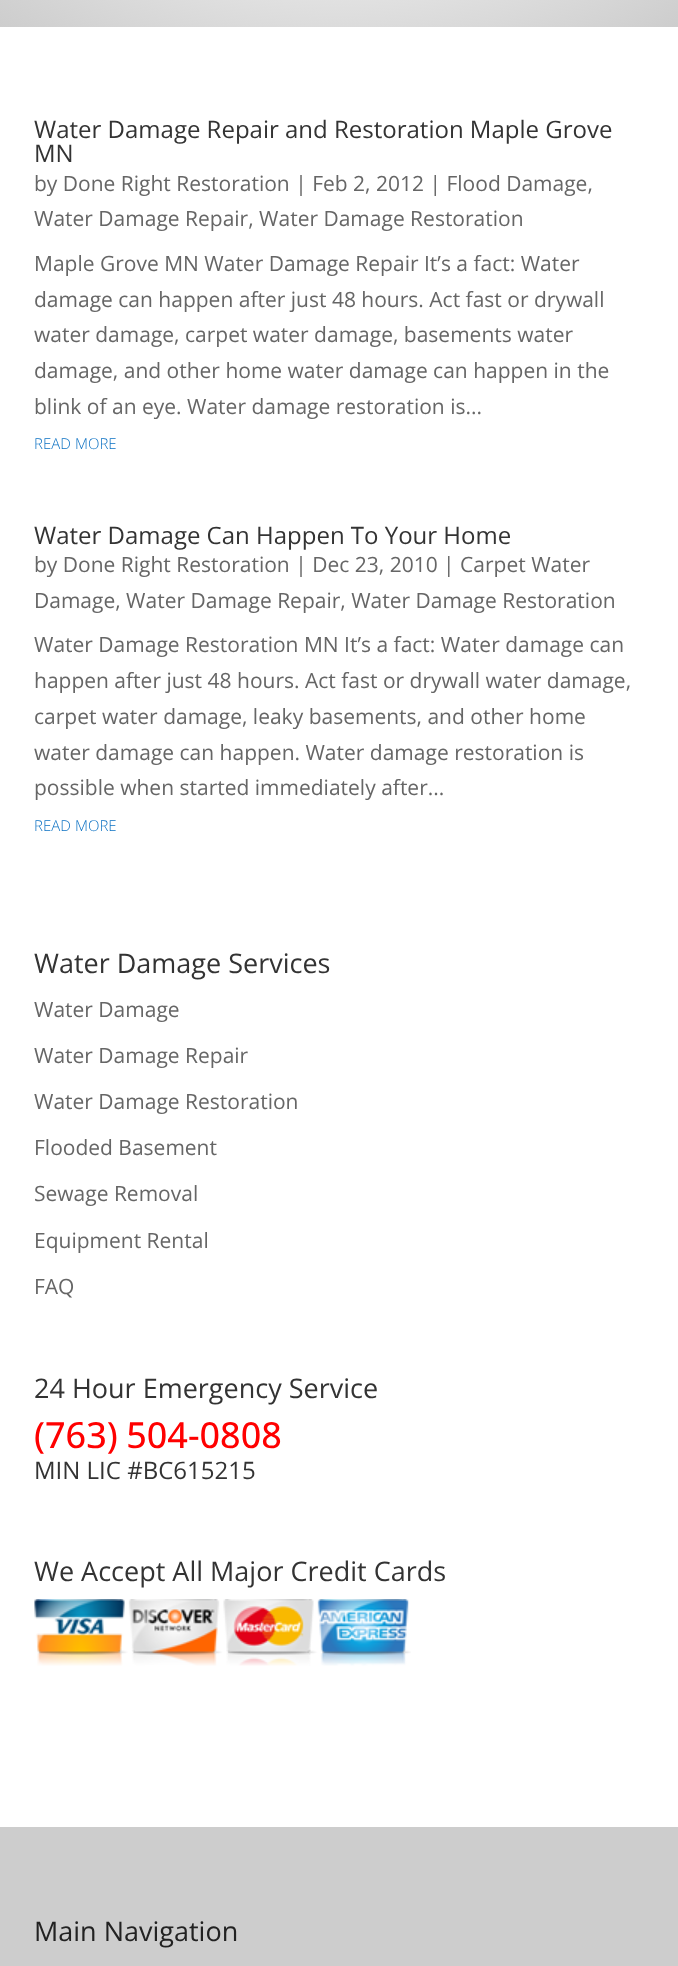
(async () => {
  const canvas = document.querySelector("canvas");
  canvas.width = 678;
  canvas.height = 1966;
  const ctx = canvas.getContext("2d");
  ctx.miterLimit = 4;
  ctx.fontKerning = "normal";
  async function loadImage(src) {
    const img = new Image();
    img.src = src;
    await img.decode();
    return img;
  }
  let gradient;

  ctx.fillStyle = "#ffffff";
  ctx.fillRect(0, 0, 678, 1966);
  gradient = ctx.createRadialGradient(339, -291.57, 0, 339, -291.57, 479);
  gradient.addColorStop(0, "#ffffff");
  gradient.addColorStop(1, "#cdcdcd");
  ctx.fillStyle = gradient;
  ctx.beginPath();
  ctx.rect(0, 0, 678, 27);
  ctx.save();
  ctx.clip();
  ctx.scale(1, 276 / 479);
  ctx.fillRect(0, 0, 678, 3413);
  ctx.restore();
  ctx.drawImage(await loadImage("img/1.png"), 34, 1599, 377, 67);
  ctx.fillStyle = "#cdcdcd";
  ctx.fillRect(0, 1827, 678, 139);
  ctx.font = "24px Open Sans";
  ctx.fillStyle = "#333333";
  ctx.fillText("Water Damage Repair and Restoration Maple Grove", 34, 138);
  ctx.fillText("MN", 34, 162);
  ctx.font = "21px Open Sans";
  ctx.fillStyle = "#666666";
  for (const [text, x, y] of [
    ["by Done Right Restoration | Feb 2, 2012 | Flood Damage,", 34, 191],
    ["Water Damage Repair, Water Damage Restoration", 34, 226],
    ["Maple Grove MN Water Damage Repair It’s a fact: Water", 34, 271],
    ["damage can happen after just 48 hours. Act fast or drywall", 34, 307],
    ["water damage, carpet water damage, basements water", 34, 342],
    ["damage, and other home water damage can happen in the", 34, 378],
    ["blink of an eye. Water damage restoration is...", 34, 414],
  ]) {
    ctx.fillText(text, x, y);
  }
  ctx.font = "300 15px Open Sans";
  ctx.fillStyle = "#0c71c3";
  ctx.fillText("READ", 34, 449);
  ctx.fillText("MORE", 75, 449);
  ctx.font = "24px Open Sans";
  ctx.fillStyle = "#333333";
  ctx.fillText("Water Damage Can Happen To Your Home", 34, 544);
  ctx.font = "21px Open Sans";
  ctx.fillStyle = "#666666";
  for (const [text, x, y] of [
    ["by Done Right Restoration | Dec 23, 2010 | Carpet Water", 34, 572],
    ["Damage, Water Damage Repair, Water Damage Restoration", 34, 608],
    ["Water Damage Restoration MN It’s a fact: Water damage can", 34, 652],
    ["happen after just 48 hours. Act fast or drywall water damage,", 34, 688],
    ["carpet water damage, leaky basements, and other home", 34, 724],
    ["water damage can happen. Water damage restoration is", 34, 760],
    ["possible when started immediately after...", 34, 795],
  ]) {
    ctx.fillText(text, x, y);
  }
  ctx.font = "300 15px Open Sans";
  ctx.fillStyle = "#0c71c3";
  ctx.fillText("READ", 34, 831);
  ctx.fillText("MORE", 75, 831);
  ctx.font = "27px Open Sans";
  ctx.fillStyle = "#333333";
  ctx.fillText("Water Damage Services", 34, 973);
  ctx.font = "21px Open Sans";
  ctx.fillStyle = "#666666";
  for (const [text, x, y] of [
    ["Water Damage", 34, 1017],
    ["Water Damage Repair", 34, 1063],
    ["Water Damage Restoration", 34, 1109],
    ["Flooded Basement", 34, 1155],
    ["Sewage Removal", 34, 1201],
    ["Equipment Rental", 34, 1248],
    ["FAQ", 34, 1294],
  ]) {
    ctx.fillText(text, x, y);
  }
  ctx.font = "27px Open Sans";
  ctx.fillStyle = "#333333";
  ctx.fillText("24 Hour Emergency Service", 34, 1398);
  ctx.wordSpacing = "-1px";
  ctx.font = "500 36px Open Sans";
  ctx.fillStyle = "#ff0000";
  ctx.fillText("(763) 504-0808", 34, 1448);
  ctx.wordSpacing = "0px";
  ctx.font = "24px Open Sans";
  ctx.fillStyle = "#333333";
  ctx.fillText("MIN LIC #BC615215", 34, 1479);
  ctx.font = "27px Open Sans";
  ctx.fillText("We Accept All Major Credit Cards", 34, 1581);
  ctx.fillStyle = "#222222";
  ctx.fillText("Main Navigation", 34, 1941);
})();
